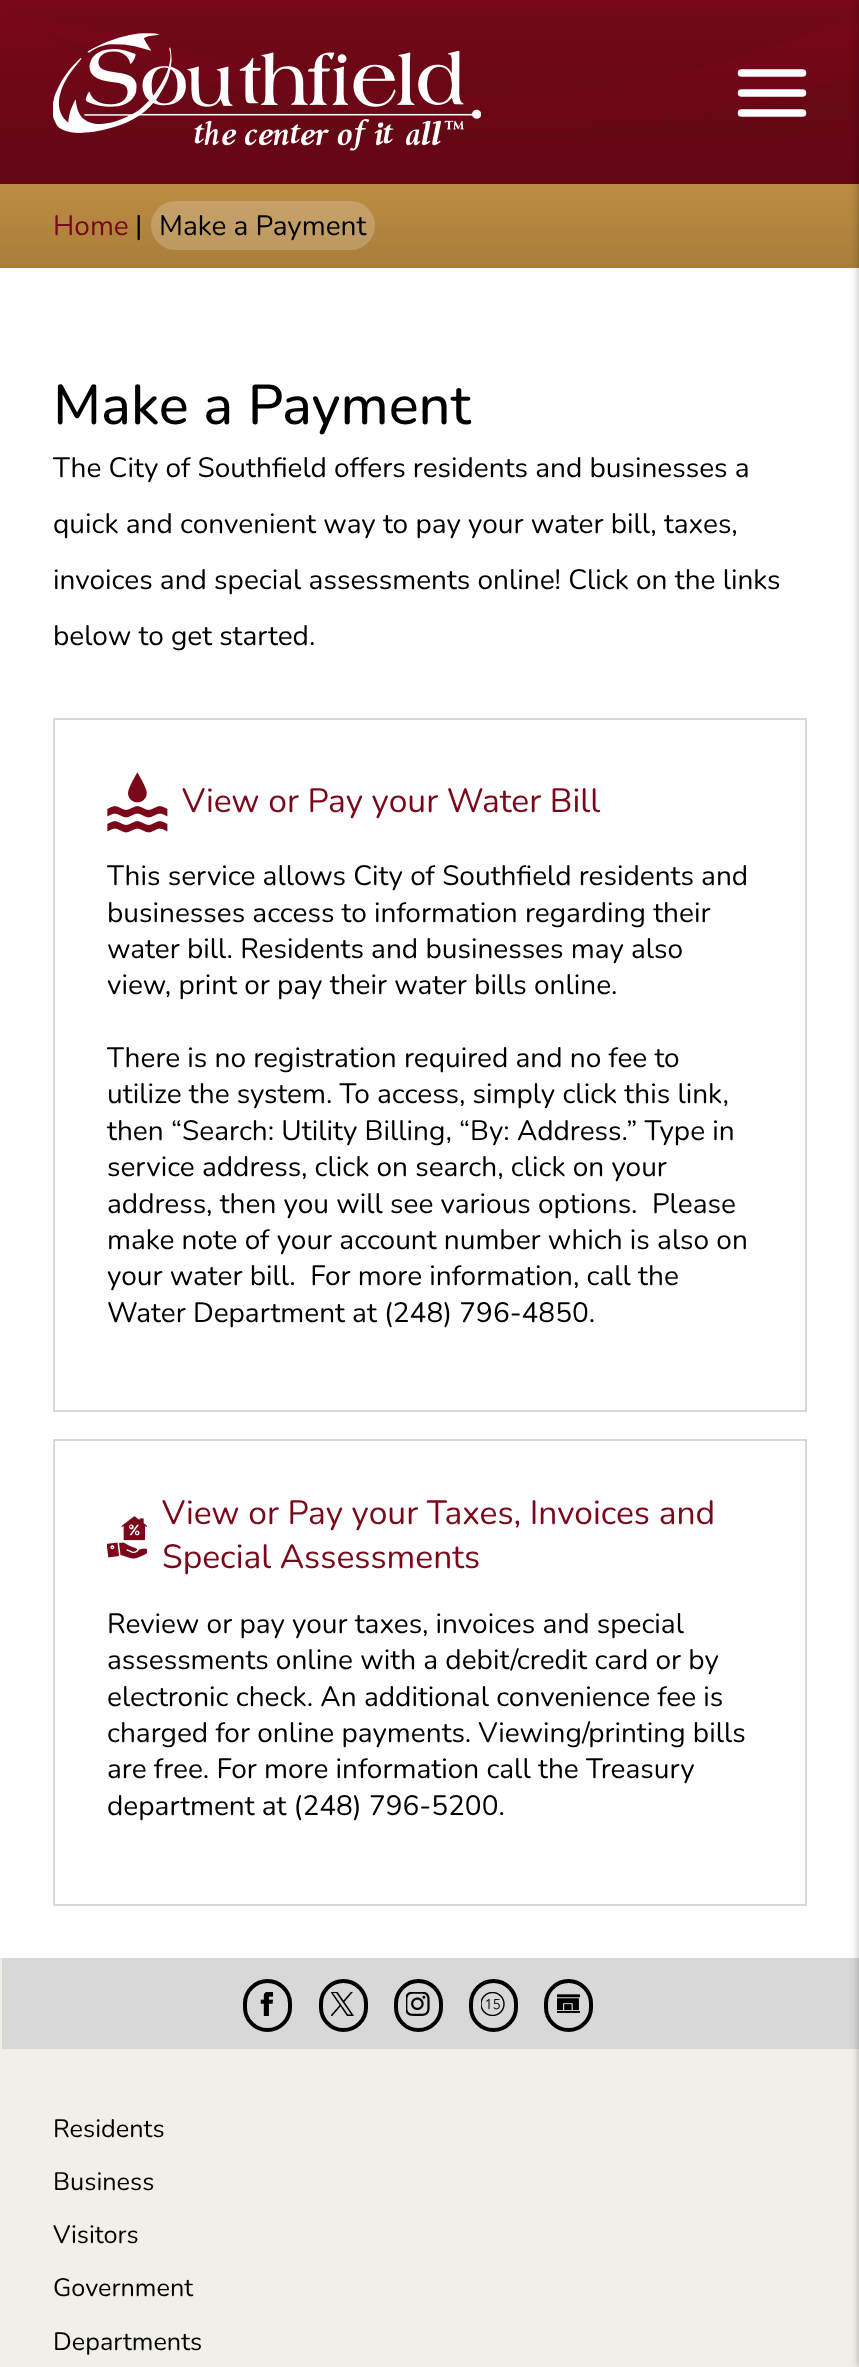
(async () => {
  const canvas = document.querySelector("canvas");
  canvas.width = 859;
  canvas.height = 2367;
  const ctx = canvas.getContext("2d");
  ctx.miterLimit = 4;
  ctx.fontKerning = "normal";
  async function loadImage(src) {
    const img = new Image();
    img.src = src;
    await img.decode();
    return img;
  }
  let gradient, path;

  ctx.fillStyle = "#ffffff";
  ctx.fillRect(0, 0, 859, 2367);
  gradient = ctx.createLinearGradient(430, 0, 430, 184);
  gradient.addColorStop(0, "#7a081a");
  gradient.addColorStop(1, "#620615");
  ctx.fillStyle = gradient;
  ctx.fillRect(0, 0, 859, 184);
  ctx.drawImage(await loadImage("img/1.png"), 5, 9, 854, 130);
  ctx.drawImage(await loadImage("img/2.png"), 53, 33, 428, 118);
  path = new Path2D("M741.5 73H802.5M741.5 93H802.5M741.5 113H802.5");
  ctx.strokeStyle = "#ffffff";
  ctx.lineWidth = 7.5;
  ctx.lineCap = "round";
  ctx.stroke(path);
  gradient = ctx.createLinearGradient(430, 184, 430, 268);
  gradient.addColorStop(0, "#bc8c42");
  gradient.addColorStop(1, "#a97e3b");
  ctx.fillStyle = gradient;
  ctx.fillRect(0, 184, 859, 84);
  ctx.fillStyle = "rgba(255, 255, 255, 0.2)";
  ctx.beginPath();
  ctx.roundRect(151, 201, 224, 49, 24.5);
  ctx.fill();
  ctx.strokeStyle = "#d8d8d8";
  ctx.lineWidth = 2;
  ctx.strokeRect(54, 719, 752, 692);
  ctx.drawImage(await loadImage("img/3.png"), 107, 772, 61, 61);
  ctx.strokeRect(54, 1440, 752, 465);
  ctx.drawImage(await loadImage("img/4.png"), 107, 1516, 40, 43);
  for (const [x, y, w, h, color] of [
    [0, 1960, 859, 407, "#f2efe8"],
    [0, 1958, 2, 2, "#ebe8e1"],
    [2, 1958, 857, 91, "#d8d8d8"],
  ]) {
    ctx.fillStyle = color;
    ctx.fillRect(x, y, w, h);
  }
  ctx.beginPath();
  ctx.roundRect(245, 1981, 45, 49, 22.5);
  ctx.strokeStyle = "#000000";
  ctx.lineWidth = 4;
  ctx.stroke();
  ctx.drawImage(await loadImage("img/5.png"), 260, 1992, 13, 24);
  ctx.beginPath();
  ctx.roundRect(321, 1981, 45, 49, 22.5);
  ctx.stroke();
  ctx.drawImage(await loadImage("img/6.png"), 331, 1992, 23, 24);
  ctx.beginPath();
  ctx.roundRect(396, 1981, 45, 49, 22.5);
  ctx.stroke();
  ctx.drawImage(await loadImage("img/7.png"), 406, 1992, 24, 24);
  ctx.beginPath();
  ctx.roundRect(471, 1981, 45, 49, 22.5);
  ctx.stroke();
  ctx.drawImage(await loadImage("img/8.png"), 481, 1992, 24, 24);
  ctx.beginPath();
  ctx.roundRect(546, 1981, 45, 49, 22.5);
  ctx.stroke();
  ctx.drawImage(await loadImage("img/9.png"), 557, 1994, 23, 19);
  ctx.fillStyle = "rgba(0, 0, 0, 0.3)";
  ctx.filter = "blur(4.5px)";
  ctx.beginPath();
  ctx.rect(859, 0, 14, 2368);
  ctx.fill();
  ctx.filter = "none";
  ctx.font = "28px Nunito";
  ctx.fillStyle = "#7a081a";
  ctx.fillText("Home", 53, 235);
  ctx.fillStyle = "#000000";
  ctx.fillText("|", 135, 235);
  ctx.fillText("Make a Payment", 159, 235);
  ctx.font = "500 56px Nunito";
  ctx.fillText("Make a Payment", 53, 424);
  ctx.font = "28px Nunito";
  for (const [text, x, y] of [
    ["The City of Southfield offers residents and businesses a", 53, 477],
    ["quick and convenient way to pay your water bill, taxes,", 53, 533],
    ["invoices and special assessments online! Click on the links", 53, 589],
    ["below to get started.", 53, 645],
  ]) {
    ctx.fillText(text, x, y);
  }
  ctx.font = "33.6px Nunito";
  ctx.fillStyle = "#7a081a";
  ctx.fillText("View or Pay your Water Bill", 182, 812);
  ctx.font = "28px Nunito";
  ctx.fillStyle = "#000000";
  for (const [text, x, y] of [
    ["This service allows City of Southfield residents and", 107, 885],
    ["businesses access to information regarding their", 107, 922],
    ["water bill. Residents and businesses may also", 107, 958],
    ["view, print or pay their water bills online.", 107, 994],
    ["There is no registration required and no fee to", 107, 1067],
    ["utilize the system. To access, simply click this link,", 107, 1103],
    ["then “Search: Utility Billing, “By: Address.” Type in", 107, 1140],
    ["service address, click on search, click on your", 107, 1176],
    ["address, then you will see various options.  Please", 107, 1213],
    ["make note of your account number which is also on", 107, 1249],
    ["your water bill.  For more information, call the", 107, 1285],
    ["Water Department at (248) 796-4850.", 107, 1322],
  ]) {
    ctx.fillText(text, x, y);
  }
  ctx.font = "33.6px Nunito";
  ctx.fillStyle = "#7a081a";
  ctx.fillText("View or Pay your Taxes, Invoices and", 162, 1524);
  ctx.fillText("Special Assessments", 162, 1568);
  ctx.font = "28px Nunito";
  ctx.fillStyle = "#000000";
  for (const [text, x, y] of [
    ["Review or pay your taxes, invoices and special", 107, 1633],
    ["assessments online with a debit/credit card or by", 107, 1669],
    ["electronic check. An additional convenience fee is", 107, 1706],
    ["charged for online payments. Viewing/printing bills", 107, 1742],
    ["are free. For more information call the Treasury", 107, 1778],
    ["department at (248) 796-5200.", 107, 1815],
  ]) {
    ctx.fillText(text, x, y);
  }
  ctx.font = "25.25px Nunito";
  for (const [text, x, y] of [
    ["Residents", 53, 2137],
    ["Business", 53, 2190],
    ["Visitors", 53, 2243],
    ["Government", 53, 2296],
    ["Departments", 53, 2350],
  ]) {
    ctx.fillText(text, x, y);
  }
})();
